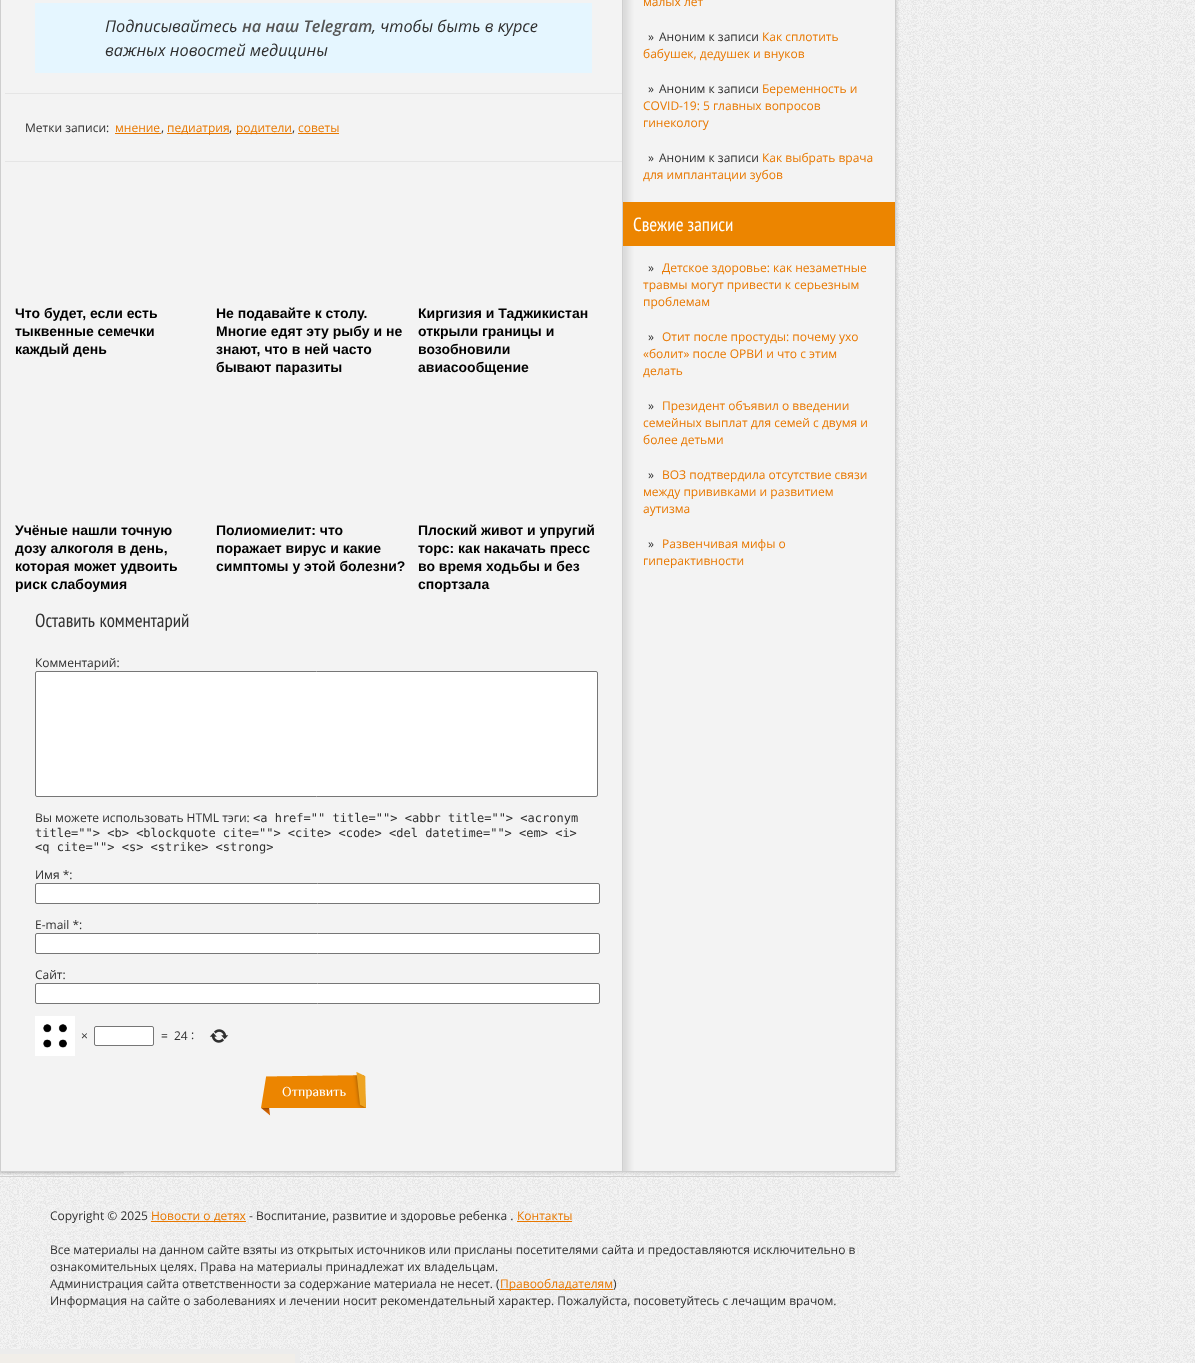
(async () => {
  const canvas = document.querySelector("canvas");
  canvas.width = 1195;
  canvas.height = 1363;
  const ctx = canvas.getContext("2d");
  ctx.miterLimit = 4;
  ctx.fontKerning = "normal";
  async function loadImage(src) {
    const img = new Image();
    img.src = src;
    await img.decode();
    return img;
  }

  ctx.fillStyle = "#ffffff";
  ctx.fillRect(0, 0, 1195, 1363);
  ctx.drawImage(await loadImage("img/1.png"), 0, 0, 1195, 1363);
  ctx.drawImage(await loadImage("img/2.png"), 0, 0, 899, 1166);
  for (const [x, y, w, h, color] of [
    [5, 93, 617, 1, "#e5e5e5"],
    [35, 3, 557, 70, "#e5f6ff"],
    [115, 133, 46, 1, "#e87800"],
    [167, 133, 62, 1, "#e87800"],
    [236, 133, 56, 1, "#e87800"],
    [298, 133, 41, 1, "#e87800"],
    [5, 161, 617, 1, "#e5e5e5"],
  ]) {
    ctx.fillStyle = color;
    ctx.fillRect(x, y, w, h);
  }
  ctx.fillStyle = "#ffffff";
  ctx.beginPath();
  ctx.roundRect(35.5, 671.5, 562, 125, 1.5);
  ctx.fill();
  ctx.strokeStyle = "#767676";
  ctx.stroke();
  ctx.beginPath();
  ctx.roundRect(35.5, 883.5, 564, 20, 1.5);
  ctx.fill();
  ctx.stroke();
  ctx.beginPath();
  ctx.roundRect(35.5, 933.5, 564, 20, 1.5);
  ctx.fill();
  ctx.stroke();
  ctx.beginPath();
  ctx.roundRect(35.5, 983.5, 564, 20, 1.5);
  ctx.fill();
  ctx.stroke();
  ctx.drawImage(await loadImage("img/3.png"), 35, 1016, 40, 40);
  ctx.beginPath();
  ctx.roundRect(94.5, 1026.5, 59, 19, 1.5);
  ctx.fill();
  ctx.stroke();
  ctx.drawImage(await loadImage("img/4.png"), 209, 1029, 20, 14);
  ctx.drawImage(await loadImage("img/5.png"), 261, 1071, 105, 45);
  ctx.fillStyle = "#ec8500";
  ctx.fillRect(623, 202, 272, 44);
  ctx.drawImage(await loadImage("img/6.png"), 0, 1166, 899, 9);
  for (const [x, y, w, h, color] of [
    [0, 1176, 900, 1, "#d0d0d0"],
    [151, 1221, 95, 1, "#e87800"],
    [517, 1221, 55, 1, "#e87800"],
    [500, 1289, 113, 1, "#e87800"],
    [0, 1354, 295, 9, "#f1eee9"],
    [0, 1349, 300, 5, "#ececec"],
    [295, 1349, 5, 14, "#ececec"],
  ]) {
    ctx.fillStyle = color;
    ctx.fillRect(x, y, w, h);
  }
  ctx.font = "italic 16.25px Open Sans";
  ctx.fillStyle = "#2f2f2f";
  ctx.fillText("Подписывайтесь", 105, 32);
  ctx.font = "italic 600 16.25px Open Sans";
  ctx.fillStyle = "#555555";
  ctx.fillText("на наш Telegram", 242, 32);
  ctx.font = "italic 16.25px Open Sans";
  ctx.fillStyle = "#2f2f2f";
  ctx.fillText(", чтобы быть в курсе", 372, 32);
  ctx.fillText("важных новостей медицины", 105, 56);
  ctx.font = "12px Open Sans";
  ctx.fillText("Метки записи:", 25, 132);
  ctx.fillStyle = "#e87800";
  ctx.fillText("мнение", 115, 132);
  ctx.fillStyle = "#2f2f2f";
  ctx.fillText(",", 161, 132);
  ctx.fillStyle = "#e87800";
  ctx.fillText("педиатрия", 167, 132);
  ctx.fillStyle = "#2f2f2f";
  ctx.fillText(",", 229, 132);
  ctx.fillStyle = "#e87800";
  ctx.fillText("родители", 236, 132);
  ctx.fillStyle = "#2f2f2f";
  ctx.fillText(",", 292, 132);
  ctx.fillStyle = "#e87800";
  ctx.fillText("советы", 298, 132);
  ctx.font = "bold 14px Liberation Sans";
  ctx.fillStyle = "#000000";
  for (const [text, x, y] of [
    ["Что будет, если есть", 15, 318],
    ["тыквенные семечки", 15, 336],
    ["каждый день", 15, 354],
    ["Не подавайте к столу.", 216, 318],
    ["Многие едят эту рыбу и не", 216, 336],
    ["знают, что в ней часто", 216, 354],
    ["бывают паразиты", 216, 372],
    ["Киргизия и Таджикистан", 418, 318],
    ["открыли границы и", 418, 336],
    ["возобновили", 418, 354],
    ["авиасообщение", 418, 372],
    ["Учёные нашли точную", 15, 535],
    ["дозу алкоголя в день,", 15, 553],
    ["которая может удвоить", 15, 571],
    ["риск слабоумия", 15, 589],
    ["Полиомиелит: что", 216, 535],
    ["поражает вирус и какие", 216, 553],
    ["симптомы у этой болезни?", 216, 571],
    ["Плоский живот и упругий", 418, 535],
    ["торс: как накачать пресс", 418, 553],
    ["во время ходьбы и без", 418, 571],
    ["спортзала", 418, 589],
  ]) {
    ctx.fillText(text, x, y);
  }
  ctx.wordSpacing = "1px";
  ctx.font = "19px PT Sans Narrow";
  ctx.fillStyle = "#2f2f2f";
  ctx.fillText("Оставить комментарий", 35, 627);
  ctx.wordSpacing = "0px";
  ctx.font = "12px Open Sans";
  ctx.fillText("Комментарий:", 35, 667);
  ctx.fillText("Вы можете использовать HTML тэги:", 35, 822);
  ctx.font = "12px DejaVu Sans Mono";
  for (const [text, x, y] of [
    ["<a href=\"\" title=\"\"> <abbr title=\"\"> <acronym", 253, 822],
    ["title=\"\"> <b> <blockquote cite=\"\"> <cite> <code> <del datetime=\"\"> <em> <i>", 35, 837],
    ["<q cite=\"\"> <s> <strike> <strong>", 35, 851],
  ]) {
    ctx.fillText(text, x, y);
  }
  ctx.font = "12px Open Sans";
  for (const [text, x, y] of [
    ["Имя *:", 35, 879],
    ["E-mail *:", 35, 929],
    ["Сайт:", 35, 979],
    ["×", 81, 1040],
    ["=", 161, 1040],
    ["24", 174, 1040],
    [":", 191, 1039],
  ]) {
    ctx.fillText(text, x, y);
  }
  ctx.font = "13.5px Philosopher";
  ctx.fillStyle = "#ffffff";
  ctx.fillText("Отправить", 282, 1096);
  ctx.font = "12px Open Sans";
  ctx.fillStyle = "#e87800";
  ctx.fillText("малых лет", 643, 6);
  ctx.fillStyle = "#2f2f2f";
  ctx.fillText("»", 648, 41);
  ctx.fillText("Аноним к записи", 659, 41);
  ctx.fillStyle = "#e87800";
  ctx.fillText("Как сплотить", 762, 41);
  ctx.fillText("бабушек, дедушек и внуков", 643, 58);
  ctx.fillStyle = "#2f2f2f";
  ctx.fillText("»", 648, 93);
  ctx.fillText("Аноним к записи", 659, 93);
  ctx.fillStyle = "#e87800";
  for (const [text, x, y] of [
    ["Беременность и", 762, 93],
    ["COVID-19: 5 главных вопросов", 643, 110],
    ["гинекологу", 643, 127],
  ]) {
    ctx.fillText(text, x, y);
  }
  ctx.fillStyle = "#2f2f2f";
  ctx.fillText("»", 648, 162);
  ctx.fillText("Аноним к записи", 659, 162);
  ctx.fillStyle = "#e87800";
  ctx.fillText("Как выбрать врача", 762, 162);
  ctx.fillText("для имплантации зубов", 643, 179);
  ctx.font = "19px PT Sans Narrow";
  ctx.fillStyle = "#ffffff";
  ctx.fillText("Свежие записи", 633, 231);
  ctx.font = "12px Open Sans";
  ctx.fillStyle = "#2f2f2f";
  ctx.fillText("»", 648, 272);
  ctx.fillStyle = "#e87800";
  for (const [text, x, y] of [
    ["Детское здоровье: как незаметные", 662, 272],
    ["травмы могут привести к серьезным", 643, 289],
    ["проблемам", 643, 306],
  ]) {
    ctx.fillText(text, x, y);
  }
  ctx.fillStyle = "#2f2f2f";
  ctx.fillText("»", 648, 341);
  ctx.fillStyle = "#e87800";
  for (const [text, x, y] of [
    ["Отит после простуды: почему ухо", 662, 341],
    ["«болит» после ОРВИ и что с этим", 643, 358],
    ["делать", 643, 375],
  ]) {
    ctx.fillText(text, x, y);
  }
  ctx.fillStyle = "#2f2f2f";
  ctx.fillText("»", 648, 410);
  ctx.fillStyle = "#e87800";
  for (const [text, x, y] of [
    ["Президент объявил о введении", 662, 410],
    ["семейных выплат для семей с двумя и", 643, 427],
    ["более детьми", 643, 444],
  ]) {
    ctx.fillText(text, x, y);
  }
  ctx.fillStyle = "#2f2f2f";
  ctx.fillText("»", 648, 479);
  ctx.fillStyle = "#e87800";
  for (const [text, x, y] of [
    ["ВОЗ подтвердила отсутствие связи", 662, 479],
    ["между прививками и развитием", 643, 496],
    ["аутизма", 643, 513],
  ]) {
    ctx.fillText(text, x, y);
  }
  ctx.fillStyle = "#2f2f2f";
  ctx.fillText("»", 648, 548);
  ctx.fillStyle = "#e87800";
  ctx.fillText("Развенчивая мифы о", 662, 548);
  ctx.fillText("гиперактивности", 643, 565);
  ctx.fillStyle = "#2f2f2f";
  ctx.fillText("Copyright © 2025", 50, 1220);
  ctx.fillStyle = "#e87800";
  ctx.fillText("Новости о детях", 151, 1220);
  ctx.fillStyle = "#2f2f2f";
  ctx.fillText("- Воспитание, развитие и здоровье ребенка .", 249, 1220);
  ctx.fillStyle = "#e87800";
  ctx.fillText("Контакты", 517, 1220);
  ctx.fillStyle = "#2f2f2f";
  for (const [text, x, y] of [
    ["Все материалы на данном сайте взяты из открытых источников или присланы посетителями сайта и предоставляются исключительно в", 50, 1254],
    ["ознакомительных целях. Права на материалы принадлежат их владельцам.", 50, 1271],
    ["Администрация сайта ответственности за содержание материала не несет. (", 50, 1288],
  ]) {
    ctx.fillText(text, x, y);
  }
  ctx.fillStyle = "#e87800";
  ctx.fillText("Правообладателям", 500, 1288);
  ctx.fillStyle = "#2f2f2f";
  ctx.fillText(")", 613, 1288);
  ctx.fillText("Информация на сайте о заболеваниях и лечении носит рекомендательный характер. Пожалуйста, посоветуйтесь с лечащим врачом.", 50, 1305);
})();
